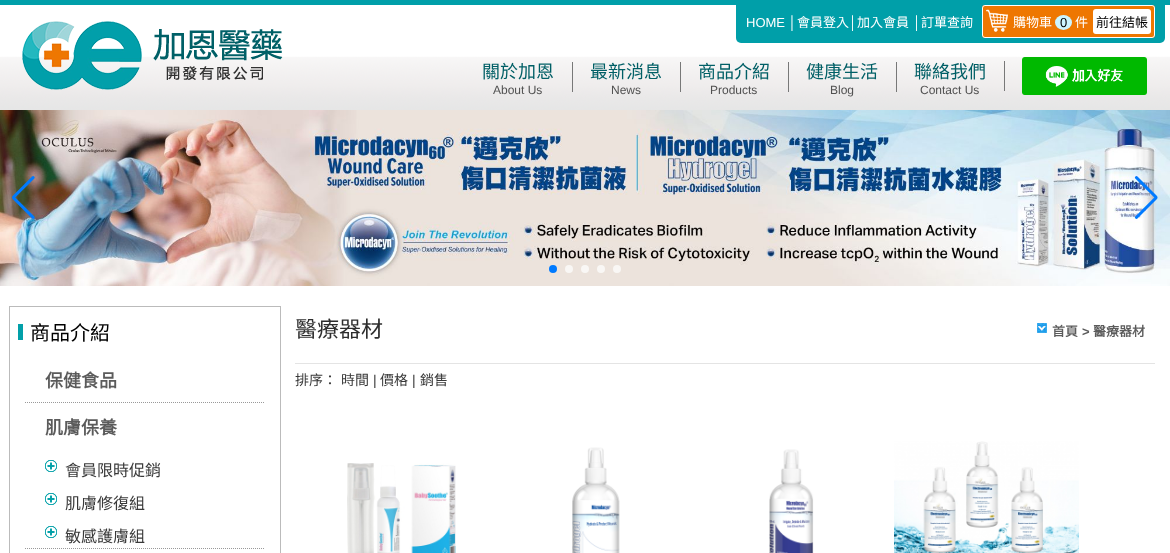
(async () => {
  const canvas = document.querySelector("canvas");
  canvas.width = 1170;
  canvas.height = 553;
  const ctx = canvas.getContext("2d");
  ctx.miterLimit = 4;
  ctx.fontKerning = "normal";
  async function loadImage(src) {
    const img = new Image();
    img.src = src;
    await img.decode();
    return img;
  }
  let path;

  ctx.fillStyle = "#ffffff";
  ctx.fillRect(0, 0, 1170, 553);
  ctx.drawImage(await loadImage("img/1.png"), 0, 0, 1170, 110);
  ctx.drawImage(await loadImage("img/2.png"), 22, 21, 261, 69);
  ctx.fillStyle = "#009fa9";
  ctx.beginPath();
  ctx.roundRect(736, 0, 429, 43, [0, 0, 5, 5]);
  ctx.fill();
  ctx.fillStyle = "#ee7701";
  ctx.beginPath();
  ctx.roundRect(982, 5, 173, 33, 3);
  ctx.fill();
  ctx.drawImage(await loadImage("img/3.png"), 986, 9, 22, 23);
  ctx.beginPath();
  ctx.roundRect(982.5, 5.5, 172, 32, 2.5);
  ctx.strokeStyle = "#ffffff";
  ctx.stroke();
  ctx.drawImage(await loadImage("img/4.png"), 1055, 15, 17, 15);
  ctx.fillStyle = "#ffffff";
  ctx.beginPath();
  ctx.roundRect(1093, 9, 58, 25, 3);
  ctx.fill();
  for (const [x, y, w, h, color] of [
    [572, 62, 1, 30, "#787878"],
    [680, 62, 1, 30, "#787878"],
    [788, 62, 1, 30, "#787878"],
    [896, 62, 1, 30, "#787878"],
    [1004, 61, 1, 30, "#787878"],
  ]) {
    ctx.fillStyle = color;
    ctx.fillRect(x, y, w, h);
  }
  ctx.drawImage(await loadImage("img/5.png"), 1022, 57, 125, 38);
  ctx.drawImage(await loadImage("img/6.png"), 0, 110, 1170, 176);
  ctx.drawImage(await loadImage("img/7.png"), 12, 176, 23, 43);
  ctx.drawImage(await loadImage("img/8.png"), 1134, 176, 24, 43);
  ctx.fillStyle = "#007aff";
  ctx.beginPath();
  ctx.arc(553, 269, 4, 0, Math.PI * 2);
  ctx.fill();
  ctx.fillStyle = "#f9f7f5";
  ctx.beginPath();
  ctx.arc(569, 269, 4, 0, Math.PI * 2);
  ctx.fill();
  ctx.beginPath();
  ctx.arc(585, 269, 4, 0, Math.PI * 2);
  ctx.fill();
  ctx.beginPath();
  ctx.arc(601, 269, 4, 0, Math.PI * 2);
  ctx.fill();
  ctx.beginPath();
  ctx.arc(617, 269, 4, 0, Math.PI * 2);
  ctx.fill();
  ctx.strokeStyle = "#bbbbbb";
  ctx.strokeRect(9.5, 306.5, 271, 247);
  ctx.fillStyle = "#02a0a9";
  ctx.fillRect(18, 324, 5, 16);
  path = new Path2D("M25 402.5H265");
  ctx.strokeStyle = "#999999";
  ctx.setLineDash([1, 1]);
  ctx.stroke(path);
  path = new Path2D("M25 548.5H265");
  ctx.stroke(path);
  ctx.drawImage(await loadImage("img/9.png"), 45, 460, 12, 12);
  ctx.drawImage(await loadImage("img/9.png"), 45, 493, 12, 12);
  ctx.drawImage(await loadImage("img/9.png"), 45, 526, 12, 12);
  ctx.fillStyle = "#e4e4e4";
  ctx.fillRect(295, 363, 860, 1);
  ctx.drawImage(await loadImage("img/10.png"), 1037, 323, 10, 10);
  ctx.drawImage(await loadImage("img/11.png"), 347, 463, 109, 90);
  ctx.drawImage(await loadImage("img/12.png"), 572, 447, 48, 106);
  ctx.drawImage(await loadImage("img/13.png"), 769, 449, 45, 104);
  ctx.drawImage(await loadImage("img/14.png"), 894, 441, 185, 112);
  ctx.font = "13px Liberation Sans";
  ctx.fillStyle = "#ffffff";
  ctx.fillText("HOME │", 746, 27);
  ctx.font = "13px Noto Sans CJK TC";
  ctx.fillText("會員登入", 797, 27);
  ctx.font = "13px Liberation Sans";
  ctx.fillText("│", 849, 27);
  ctx.font = "13px Noto Sans CJK TC";
  ctx.fillText("加入會員", 857, 27);
  ctx.font = "13px Liberation Sans";
  ctx.fillText("│", 913, 27);
  ctx.font = "13px Noto Sans CJK TC";
  ctx.fillText("訂單查詢", 921, 27);
  ctx.fillText("購物車", 1013, 27);
  ctx.font = "13px Liberation Sans";
  ctx.fillStyle = "#000000";
  ctx.fillText("0", 1060, 27);
  ctx.font = "13px Noto Sans CJK TC";
  ctx.fillStyle = "#ffffff";
  ctx.fillText("件", 1075, 27);
  ctx.fillStyle = "#000000";
  ctx.fillText("前往結帳", 1096, 27);
  ctx.font = "18px Noto Sans CJK TC";
  ctx.fillStyle = "#005f66";
  ctx.fillText("關於加恩", 482, 78);
  ctx.font = "12px Liberation Sans";
  ctx.fillStyle = "#515151";
  ctx.fillText("About Us", 493, 94);
  ctx.font = "18px Noto Sans CJK TC";
  ctx.fillStyle = "#005f66";
  ctx.fillText("最新消息", 590, 78);
  ctx.font = "12px Liberation Sans";
  ctx.fillStyle = "#515151";
  ctx.fillText("News", 611, 94);
  ctx.font = "18px Noto Sans CJK TC";
  ctx.fillStyle = "#005f66";
  ctx.fillText("商品介紹", 698, 78);
  ctx.font = "12px Liberation Sans";
  ctx.fillStyle = "#515151";
  ctx.fillText("Products", 710, 94);
  ctx.font = "18px Noto Sans CJK TC";
  ctx.fillStyle = "#005f66";
  ctx.fillText("健康生活", 806, 78);
  ctx.font = "12px Liberation Sans";
  ctx.fillStyle = "#515151";
  ctx.fillText("Blog", 830, 94);
  ctx.font = "18px Noto Sans CJK TC";
  ctx.fillStyle = "#005f66";
  ctx.fillText("聯絡我們", 914, 78);
  ctx.font = "12px Liberation Sans";
  ctx.fillStyle = "#515151";
  ctx.fillText("Contact Us", 920, 94);
  ctx.font = "20px Noto Sans CJK TC";
  ctx.fillStyle = "#000000";
  ctx.fillText("商品介紹", 30, 340);
  ctx.font = "bold 18px Noto Sans CJK TC";
  ctx.fillStyle = "#5b5b5b";
  ctx.fillText("保健食品", 45, 387);
  ctx.fillText("肌膚保養", 45, 434);
  ctx.font = "16px Noto Sans CJK TC";
  ctx.fillStyle = "#383838";
  for (const [text, x, y] of [
    ["會員限時促銷", 65, 476],
    ["肌膚修復組", 65, 509],
    ["敏感護膚組", 65, 542],
  ]) {
    ctx.fillText(text, x, y);
  }
  ctx.font = "22px Noto Sans CJK TC";
  ctx.fillStyle = "#2e2e2e";
  ctx.fillText("醫療器材", 295, 337);
  ctx.font = "bold 13px Noto Sans CJK TC";
  ctx.fillStyle = "#5b5b5b";
  ctx.fillText("首頁", 1052, 336);
  ctx.font = "bold 13px Liberation Sans";
  ctx.fillText(">", 1082, 336);
  ctx.font = "bold 13px Noto Sans CJK TC";
  ctx.fillText("醫療器材", 1093, 336);
  ctx.font = "14px Noto Sans CJK TC";
  ctx.fillStyle = "#383838";
  ctx.fillText("排序：", 295, 385);
  ctx.fillText("時間", 341, 385);
  ctx.font = "14px Liberation Sans";
  ctx.fillText("|", 373, 385);
  ctx.font = "14px Noto Sans CJK TC";
  ctx.fillText("價格", 380, 385);
  ctx.font = "14px Liberation Sans";
  ctx.fillText("|", 412, 385);
  ctx.font = "14px Noto Sans CJK TC";
  ctx.fillText("銷售", 420, 385);
})();
